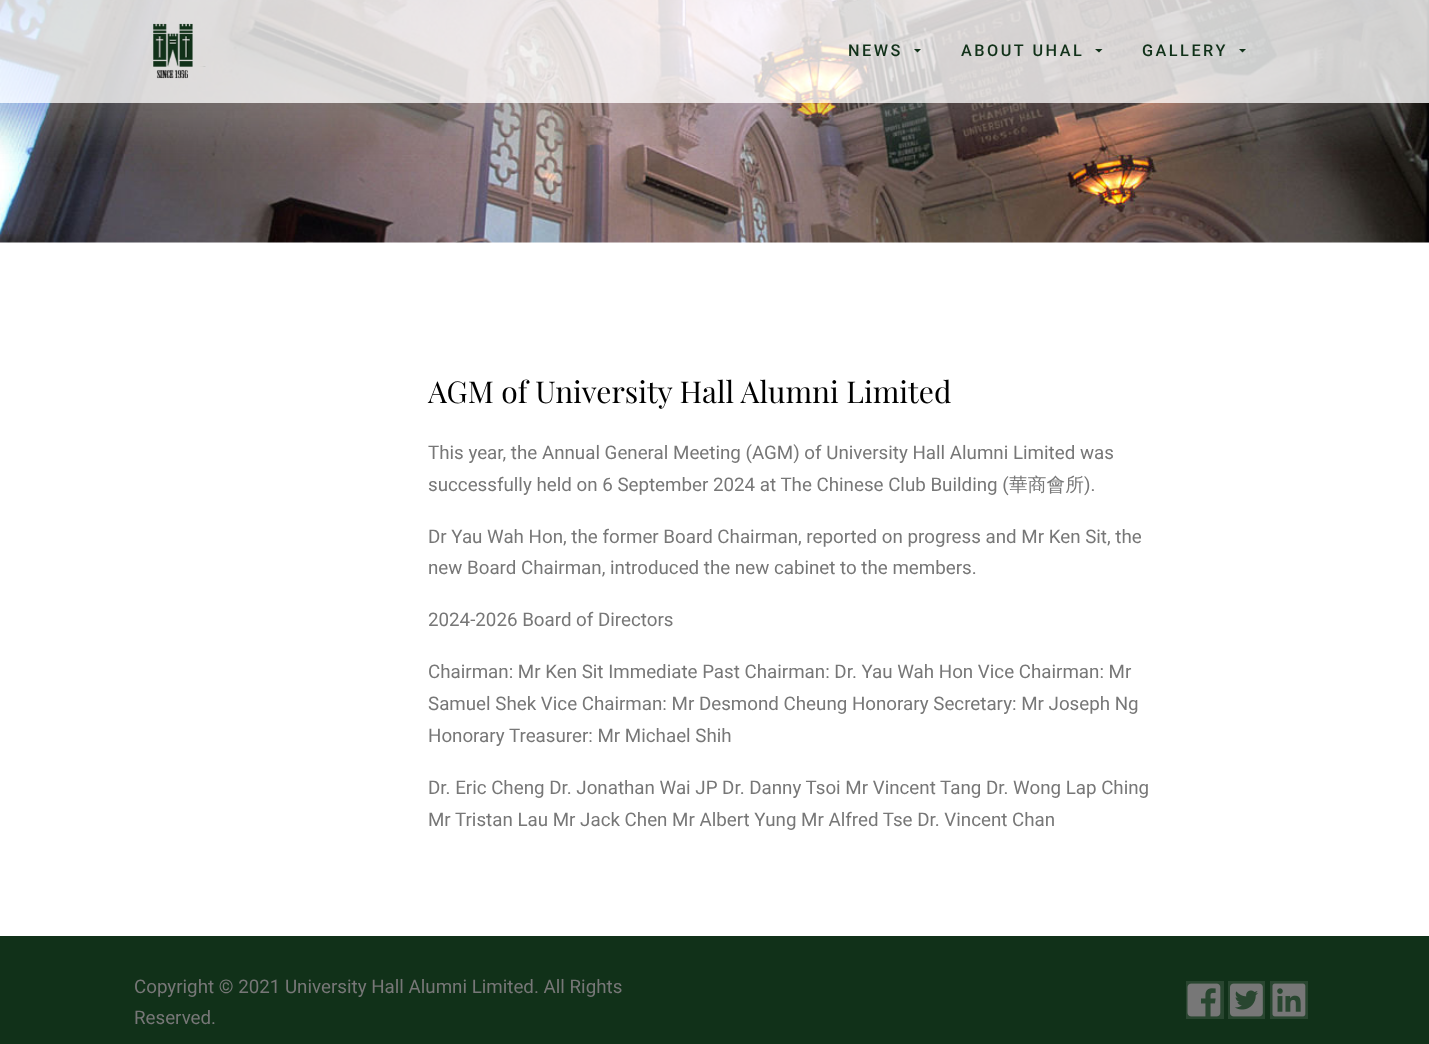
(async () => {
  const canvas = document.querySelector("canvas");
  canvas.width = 1429;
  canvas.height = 1044;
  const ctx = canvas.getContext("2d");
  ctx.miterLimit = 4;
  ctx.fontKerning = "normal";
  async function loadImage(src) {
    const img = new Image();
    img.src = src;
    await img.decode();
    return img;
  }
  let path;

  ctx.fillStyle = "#ffffff";
  ctx.fillRect(0, 0, 1429, 1044);
  ctx.drawImage(await loadImage("img/1.png"), 0, 0, 1429, 243);
  ctx.save();
  path = new Path2D("M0 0H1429V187H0ZM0 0H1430V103H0Z");
  ctx.clip(path, "evenodd");
  ctx.fillStyle = "rgba(158, 158, 158, 0.3)";
  ctx.filter = "blur(19px)";
  ctx.beginPath();
  ctx.rect(-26, 26, 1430, 103);
  ctx.fill();
  ctx.filter = "none";
  ctx.restore();
  ctx.fillStyle = "rgba(255, 255, 255, 0.8)";
  ctx.fillRect(0, 0, 1429, 103);
  ctx.drawImage(await loadImage("img/2.png"), 153, 23, 53, 56);
  ctx.fillStyle = "#113119";
  path = new Path2D("M914 49H921L917.5 52.5Z");
  ctx.fill(path);
  path = new Path2D("M1095 49H1102.5L1099 52.5Z");
  ctx.fill(path);
  path = new Path2D("M1239 49H1246L1242.5 52.5Z");
  ctx.fill(path);
  ctx.fillRect(0, 936, 1429, 108);
  ctx.fillStyle = "#294630";
  ctx.fillRect(1186, 981, 38, 38);
  ctx.drawImage(await loadImage("img/3.png"), 1187, 983, 34, 34);
  ctx.fillRect(1228, 981, 37, 38);
  ctx.drawImage(await loadImage("img/4.png"), 1230, 983, 33, 34);
  ctx.fillRect(1270, 981, 38, 38);
  ctx.drawImage(await loadImage("img/5.png"), 1272, 983, 34, 34);
  ctx.letterSpacing = "2.5px";
  ctx.font = "500 16.25px Roboto";
  ctx.fillStyle = "#113119";
  for (const [text, x, y] of [
    ["NEWS", 848, 56],
    ["ABOUT UHAL", 961, 56],
    ["GALLERY", 1142, 56],
  ]) {
    ctx.fillText(text, x, y);
  }
  ctx.letterSpacing = "0px";
  ctx.font = "30px Playfair Display";
  ctx.fillStyle = "#000000";
  ctx.fillText("AGM of University Hall Alumni Limited", 428, 403);
  ctx.font = "18.75px Roboto";
  ctx.fillStyle = "#777777";
  ctx.fillText("This year, the Annual General Meeting (AGM) of University Hall Alumni Limited was", 428, 459);
  ctx.fillText("successfully held on 6 September 2024 at The Chinese Club Building (", 428, 491);
  ctx.font = "500 18.75px WenQuanYi Zen Hei";
  ctx.fillText("華商會所", 1009, 491);
  ctx.font = "18.75px Roboto";
  for (const [text, x, y] of [
    [").", 1084, 491],
    ["Dr Yau Wah Hon, the former Board Chairman, reported on progress and Mr Ken Sit, the", 428, 543],
    ["new Board Chairman, introduced the new cabinet to the members.", 428, 574],
    ["2024-2026 Board of Directors", 428, 626],
    ["Chairman: Mr Ken Sit Immediate Past Chairman: Dr. Yau Wah Hon Vice Chairman: Mr", 428, 678],
    ["Samuel Shek Vice Chairman: Mr Desmond Cheung Honorary Secretary: Mr Joseph Ng", 428, 710],
    ["Honorary Treasurer: Mr Michael Shih", 428, 742],
    ["Dr. Eric Cheng Dr. Jonathan Wai JP Dr. Danny Tsoi Mr Vincent Tang Dr. Wong Lap Ching", 428, 794],
    ["Mr Tristan Lau Mr Jack Chen Mr Albert Yung Mr Alfred Tse Dr. Vincent Chan", 428, 826],
    ["Copyright © 2021 University Hall Alumni Limited. All Rights", 134, 993],
    ["Reserved.", 134, 1024],
  ]) {
    ctx.fillText(text, x, y);
  }
})();
